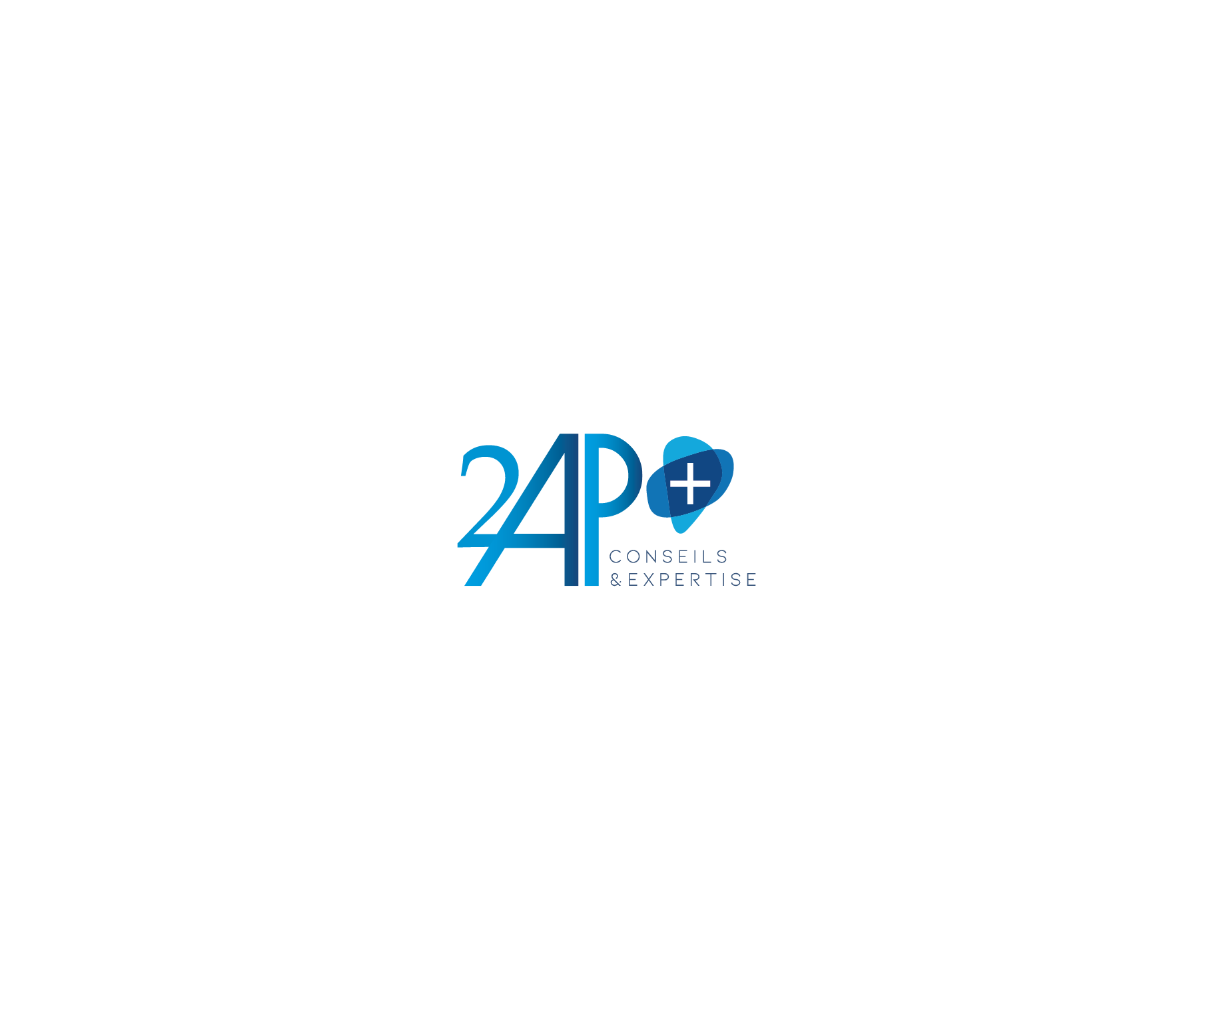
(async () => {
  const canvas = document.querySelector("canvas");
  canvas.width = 1213;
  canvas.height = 1020;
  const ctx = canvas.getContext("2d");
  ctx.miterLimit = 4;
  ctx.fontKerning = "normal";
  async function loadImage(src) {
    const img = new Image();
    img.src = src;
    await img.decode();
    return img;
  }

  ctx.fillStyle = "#ffffff";
  ctx.fillRect(0, 0, 1213, 1020);
  ctx.drawImage(await loadImage("img/1.png"), 457, 433, 299, 154);
})();
